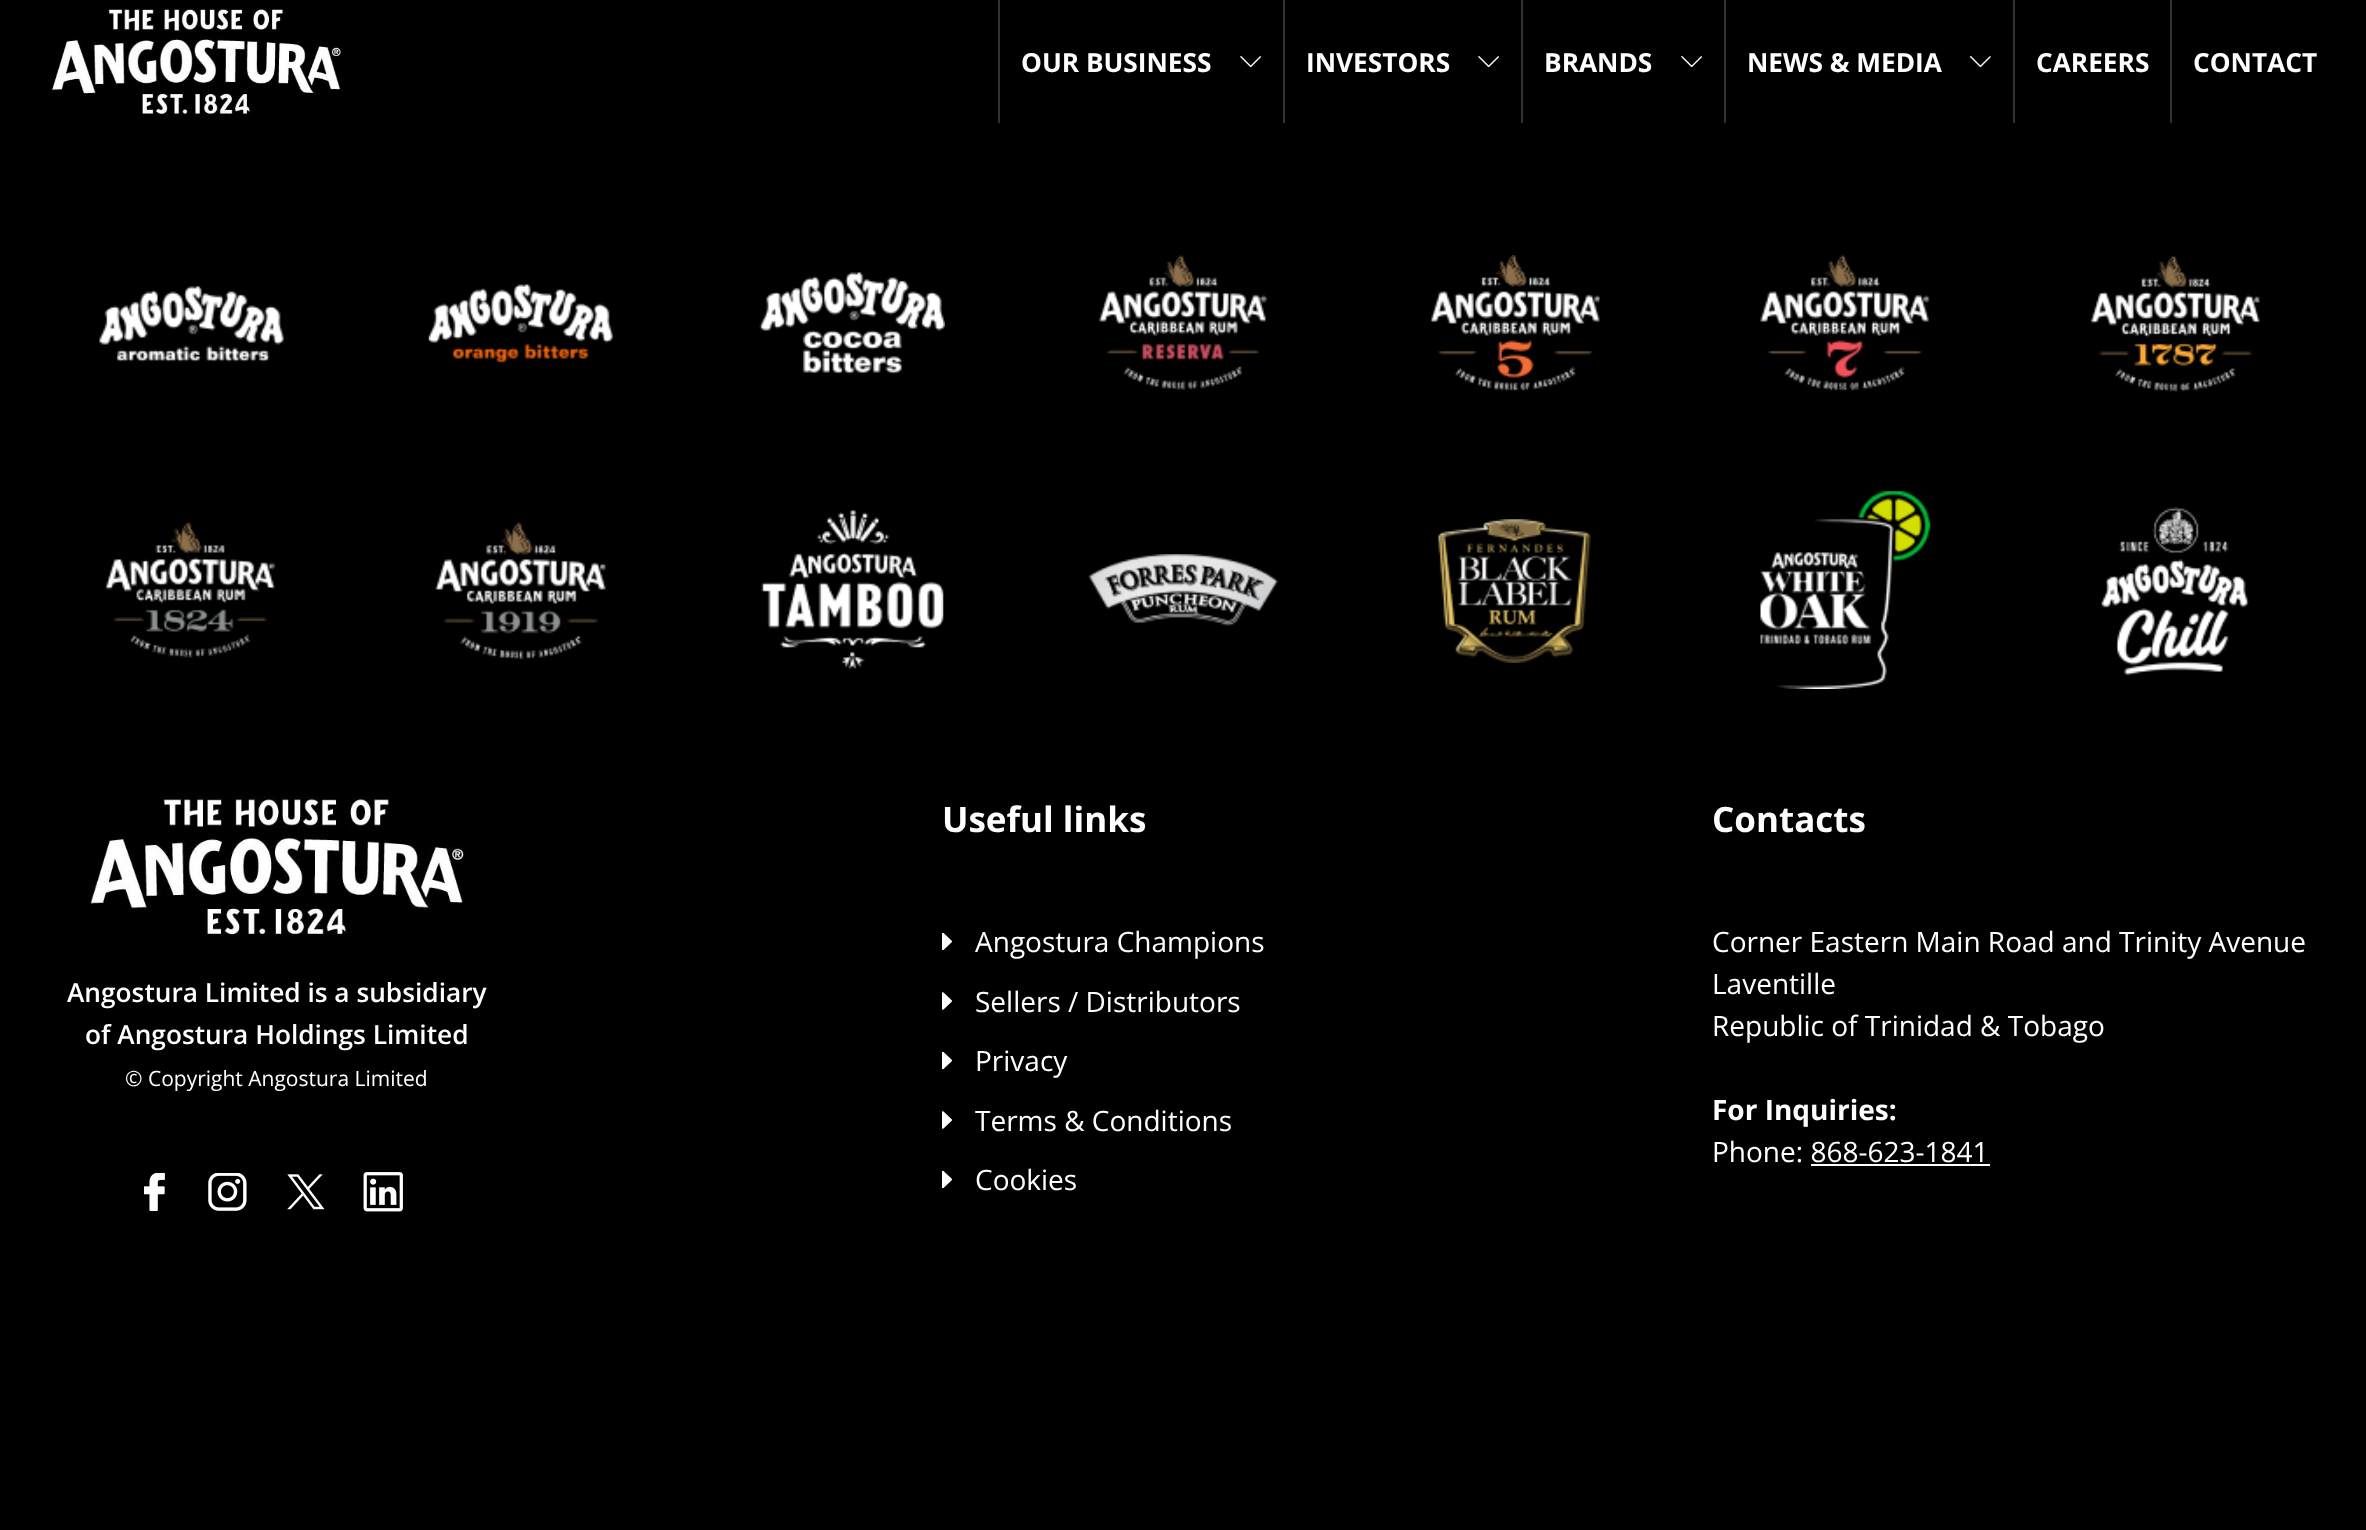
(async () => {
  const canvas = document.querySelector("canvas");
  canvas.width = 2366;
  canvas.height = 1530;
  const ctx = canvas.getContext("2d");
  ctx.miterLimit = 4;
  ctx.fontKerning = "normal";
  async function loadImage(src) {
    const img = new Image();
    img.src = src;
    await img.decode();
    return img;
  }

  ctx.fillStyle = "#000000";
  ctx.fillRect(0, 0, 2366, 1530);
  ctx.drawImage(await loadImage("img/1.png"), 51, 7, 291, 108);
  ctx.fillStyle = "#333333";
  ctx.fillRect(998, 0, 2, 123);
  ctx.drawImage(await loadImage("img/2.png"), 1240, 56, 21, 12);
  ctx.fillRect(1283, 0, 2, 123);
  ctx.drawImage(await loadImage("img/2.png"), 1478, 56, 21, 12);
  ctx.fillRect(1521, 0, 2, 123);
  ctx.drawImage(await loadImage("img/2.png"), 1681, 56, 21, 12);
  ctx.fillRect(1724, 0, 2, 123);
  ctx.drawImage(await loadImage("img/3.png"), 1970, 56, 21, 12);
  ctx.fillRect(2013, 0, 2, 123);
  ctx.fillRect(2170, 0, 2, 123);
  ctx.drawImage(await loadImage("img/4.png"), 98, 286, 186, 76);
  ctx.drawImage(await loadImage("img/5.png"), 428, 283, 185, 80);
  ctx.drawImage(await loadImage("img/6.png"), 759, 272, 186, 102);
  ctx.drawImage(await loadImage("img/7.png"), 1099, 255, 168, 135);
  ctx.drawImage(await loadImage("img/8.png"), 1430, 255, 170, 136);
  ctx.drawImage(await loadImage("img/9.png"), 1760, 254, 170, 137);
  ctx.drawImage(await loadImage("img/10.png"), 2090, 256, 170, 136);
  ctx.drawImage(await loadImage("img/11.png"), 105, 522, 170, 136);
  ctx.drawImage(await loadImage("img/12.png"), 435, 522, 171, 138);
  ctx.drawImage(await loadImage("img/13.png"), 761, 510, 183, 160);
  ctx.drawImage(await loadImage("img/14.png"), 1088, 554, 190, 72);
  ctx.drawImage(await loadImage("img/15.png"), 1438, 519, 153, 144);
  ctx.drawImage(await loadImage("img/16.png"), 1760, 491, 171, 198);
  ctx.drawImage(await loadImage("img/17.png"), 2101, 507, 148, 168);
  ctx.drawImage(await loadImage("img/18.png"), 89, 796, 378, 140);
  ctx.drawImage(await loadImage("img/19.png"), 144, 1173, 21, 38);
  ctx.drawImage(await loadImage("img/20.png"), 208, 1173, 39, 38);
  ctx.drawImage(await loadImage("img/21.png"), 287, 1174, 38, 36);
  ctx.drawImage(await loadImage("img/22.png"), 363, 1172, 40, 40);
  ctx.drawImage(await loadImage("img/23.png"), 942, 933, 10, 17);
  ctx.drawImage(await loadImage("img/24.png"), 942, 992, 10, 18);
  ctx.drawImage(await loadImage("img/23.png"), 942, 1052, 10, 17);
  ctx.drawImage(await loadImage("img/24.png"), 942, 1111, 10, 18);
  ctx.drawImage(await loadImage("img/23.png"), 942, 1171, 10, 17);
  ctx.fillStyle = "#ffffff";
  ctx.fillRect(1811, 1164, 179, 2);
  ctx.font = "bold 26.25px Open Sans";
  for (const [text, x, y] of [
    ["OUR BUSINESS", 1021, 72],
    ["INVESTORS", 1306, 72],
    ["BRANDS", 1544, 72],
    ["NEWS & MEDIA", 1747, 72],
    ["CAREERS", 2036, 72],
    ["CONTACT", 2193, 72],
  ]) {
    ctx.fillText(text, x, y);
  }
  ctx.font = "600 26.25px Open Sans";
  ctx.fillText("Angostura Limited is a subsidiary", 67, 1002);
  ctx.fillText("of Angostura Holdings Limited", 85, 1044);
  ctx.font = "21px Open Sans";
  ctx.fillText("© Copyright Angostura Limited", 125, 1086);
  ctx.font = "bold 35px Open Sans";
  ctx.fillText("Useful links", 942, 832);
  ctx.font = "28px Open Sans";
  for (const [text, x, y] of [
    ["Angostura Champions", 975, 952],
    ["Sellers / Distributors", 975, 1012],
    ["Privacy", 975, 1071],
    ["Terms & Conditions", 975, 1131],
    ["Cookies", 975, 1190],
  ]) {
    ctx.fillText(text, x, y);
  }
  ctx.font = "bold 35px Open Sans";
  ctx.fillText("Contacts", 1712, 832);
  ctx.font = "28px Open Sans";
  for (const [text, x, y] of [
    ["Corner Eastern Main Road and Trinity Avenue", 1712, 952],
    ["Laventille", 1712, 994],
    ["Republic of Trinidad & Tobago", 1712, 1036],
  ]) {
    ctx.fillText(text, x, y);
  }
  ctx.font = "bold 28px Open Sans";
  ctx.fillText("For Inquiries:", 1712, 1120);
  ctx.font = "28px Open Sans";
  ctx.fillText("Phone: 868-623-1841", 1712, 1162);
})();
